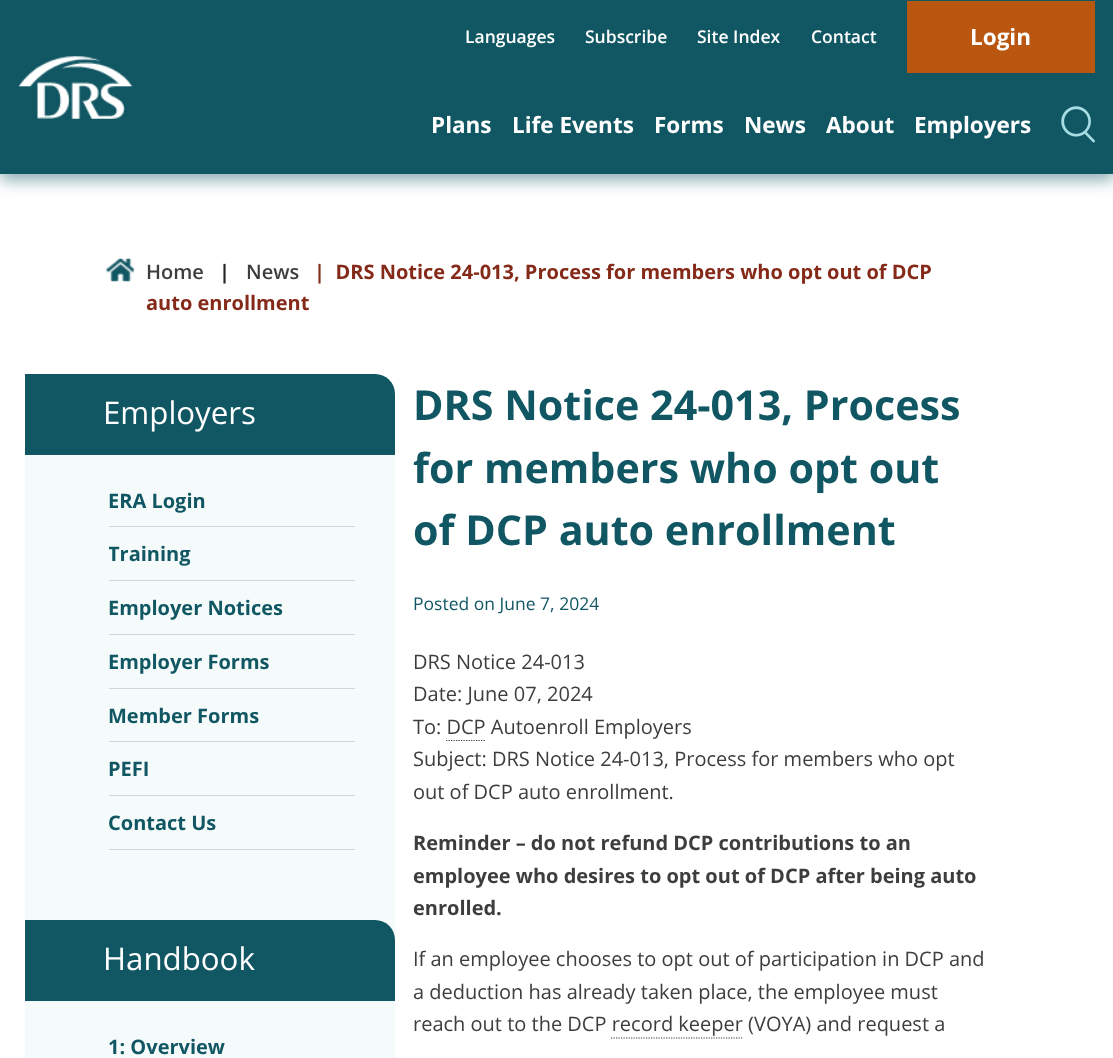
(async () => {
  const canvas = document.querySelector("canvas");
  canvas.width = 1113;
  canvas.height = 1058;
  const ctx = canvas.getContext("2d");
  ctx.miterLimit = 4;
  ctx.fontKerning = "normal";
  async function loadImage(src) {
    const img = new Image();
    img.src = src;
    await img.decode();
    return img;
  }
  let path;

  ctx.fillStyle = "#ffffff";
  ctx.fillRect(0, 0, 1113, 1058);
  ctx.fillStyle = "rgba(17, 87, 99, 0.5)";
  ctx.filter = "blur(8px)";
  ctx.beginPath();
  ctx.rect(0, 6, 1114, 174);
  ctx.fill();
  ctx.filter = "none";
  ctx.fillStyle = "#115763";
  ctx.fillRect(0, 0, 1113, 174);
  ctx.drawImage(await loadImage("img/1.png"), 18, 56, 115, 63);
  ctx.fillStyle = "#b9560f";
  ctx.fillRect(907, 1, 188, 72);
  ctx.drawImage(await loadImage("img/2.png"), 1061, 106, 34, 37);
  ctx.drawImage(await loadImage("img/3.png"), 106, 258, 28, 24);
  ctx.fillStyle = "#f5fafa";
  path = new Path2D("M25 374H375C386 374 395 383 395 394V1058C395 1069 386 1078 375 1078H25Z");
  ctx.fill(path);
  ctx.fillStyle = "#115763";
  ctx.beginPath();
  ctx.roundRect(25, 374, 370, 81, [0, 20, 0, 0]);
  ctx.fill();
  for (const [x, y, w, h, color] of [
    [109, 526, 246, 1, "#d0d7d8"],
    [109, 580, 246, 1, "#d0d7d8"],
    [109, 634, 246, 1, "#d0d7d8"],
    [109, 688, 246, 1, "#d0d7d8"],
    [109, 741, 246, 1, "#d0d7d8"],
    [109, 795, 246, 1, "#d0d7d8"],
    [109, 849, 246, 1, "#d0d7d8"],
  ]) {
    ctx.fillStyle = color;
    ctx.fillRect(x, y, w, h);
  }
  ctx.fillStyle = "#115763";
  ctx.beginPath();
  ctx.roundRect(25, 920, 370, 81, [0, 20, 0, 0]);
  ctx.fill();
  path = new Path2D("M446 740.5H486");
  ctx.strokeStyle = "#3d3d3d";
  ctx.lineWidth = 1.2;
  ctx.setLineDash([1.25, 1.25]);
  ctx.stroke(path);
  path = new Path2D("M611 1038H742.5");
  ctx.stroke(path);
  ctx.font = "600 17.5px Open Sans";
  ctx.fillStyle = "#ffffff";
  for (const [text, x, y] of [
    ["Languages", 465, 43],
    ["Subscribe", 585, 43],
    ["Site Index", 697, 43],
    ["Contact", 811, 43],
  ]) {
    ctx.fillText(text, x, y);
  }
  ctx.font = "bold 22.5px Open Sans";
  for (const [text, x, y] of [
    ["Login", 970, 45],
    ["Plans", 431, 133],
    ["Life Events", 512, 133],
    ["Forms", 654, 133],
    ["News", 744, 133],
    ["About", 826, 133],
    ["Employers", 914, 133],
  ]) {
    ctx.fillText(text, x, y);
  }
  ctx.font = "600 20px Open Sans";
  ctx.fillStyle = "#3d3d3d";
  ctx.fillText("Home", 146, 279);
  ctx.font = "bold 20px Open Sans";
  ctx.fillStyle = "#212529";
  ctx.fillText("|", 219, 279);
  ctx.font = "600 20px Open Sans";
  ctx.fillStyle = "#3d3d3d";
  ctx.fillText("News", 246, 279);
  ctx.font = "bold 20px Open Sans";
  ctx.fillStyle = "#852a19";
  ctx.fillText("|  DRS Notice 24-013, Process for members who opt out of DCP", 314, 279);
  ctx.fillText("auto enrollment", 146, 310);
  ctx.font = "31.25px Open Sans";
  ctx.fillStyle = "#ffffff";
  ctx.fillText("Employers", 103, 424);
  ctx.font = "bold 20px Open Sans";
  ctx.fillStyle = "#115763";
  ctx.fillText("ERA Login", 108, 508);
  ctx.save();
  ctx.beginPath();
  ctx.rect(109, 474, 286, 376);
  ctx.clip();
  ctx.fillText("Training", 108, 561);
  ctx.restore();
  for (const [text, x, y] of [
    ["Employer Notices", 108, 615],
    ["Employer Forms", 108, 669],
    ["Member Forms", 108, 723],
    ["PEFI", 108, 776],
    ["Contact Us", 108, 830],
  ]) {
    ctx.fillText(text, x, y);
  }
  ctx.font = "31.25px Open Sans";
  ctx.fillStyle = "#ffffff";
  ctx.fillText("Handbook", 103, 970);
  ctx.font = "bold 20px Open Sans";
  ctx.fillStyle = "#115763";
  ctx.fillText("1: Overview", 108, 1054);
  ctx.font = "bold 41.25px Open Sans";
  for (const [text, x, y] of [
    ["DRS Notice 24-013, Process", 413, 420],
    ["for members who opt out", 413, 483],
    ["of DCP auto enrollment", 413, 545],
  ]) {
    ctx.fillText(text, x, y);
  }
  ctx.font = "17.5px Open Sans";
  ctx.fillText("Posted on June 7, 2024", 413, 610);
  ctx.font = "20px Open Sans";
  ctx.fillStyle = "#3d3d3d";
  for (const [text, x, y] of [
    ["DRS Notice 24-013", 413, 669],
    ["Date: June 07, 2024", 413, 701],
    ["To: DCP Autoenroll Employers", 413, 734],
    ["Subject: DRS Notice 24-013, Process for members who opt", 413, 766],
    ["out of DCP auto enrollment.", 413, 799],
  ]) {
    ctx.fillText(text, x, y);
  }
  ctx.font = "bold 20px Open Sans";
  for (const [text, x, y] of [
    ["Reminder – do not refund DCP contributions to an", 413, 850],
    ["employee who desires to opt out of DCP after being auto", 413, 883],
    ["enrolled.", 413, 915],
  ]) {
    ctx.fillText(text, x, y);
  }
  ctx.font = "20px Open Sans";
  for (const [text, x, y] of [
    ["If an employee chooses to opt out of participation in DCP and", 413, 966],
    ["a deduction has already taken place, the employee must", 413, 999],
    ["reach out to the DCP record keeper (VOYA) and request a", 413, 1031],
  ]) {
    ctx.fillText(text, x, y);
  }
})();
